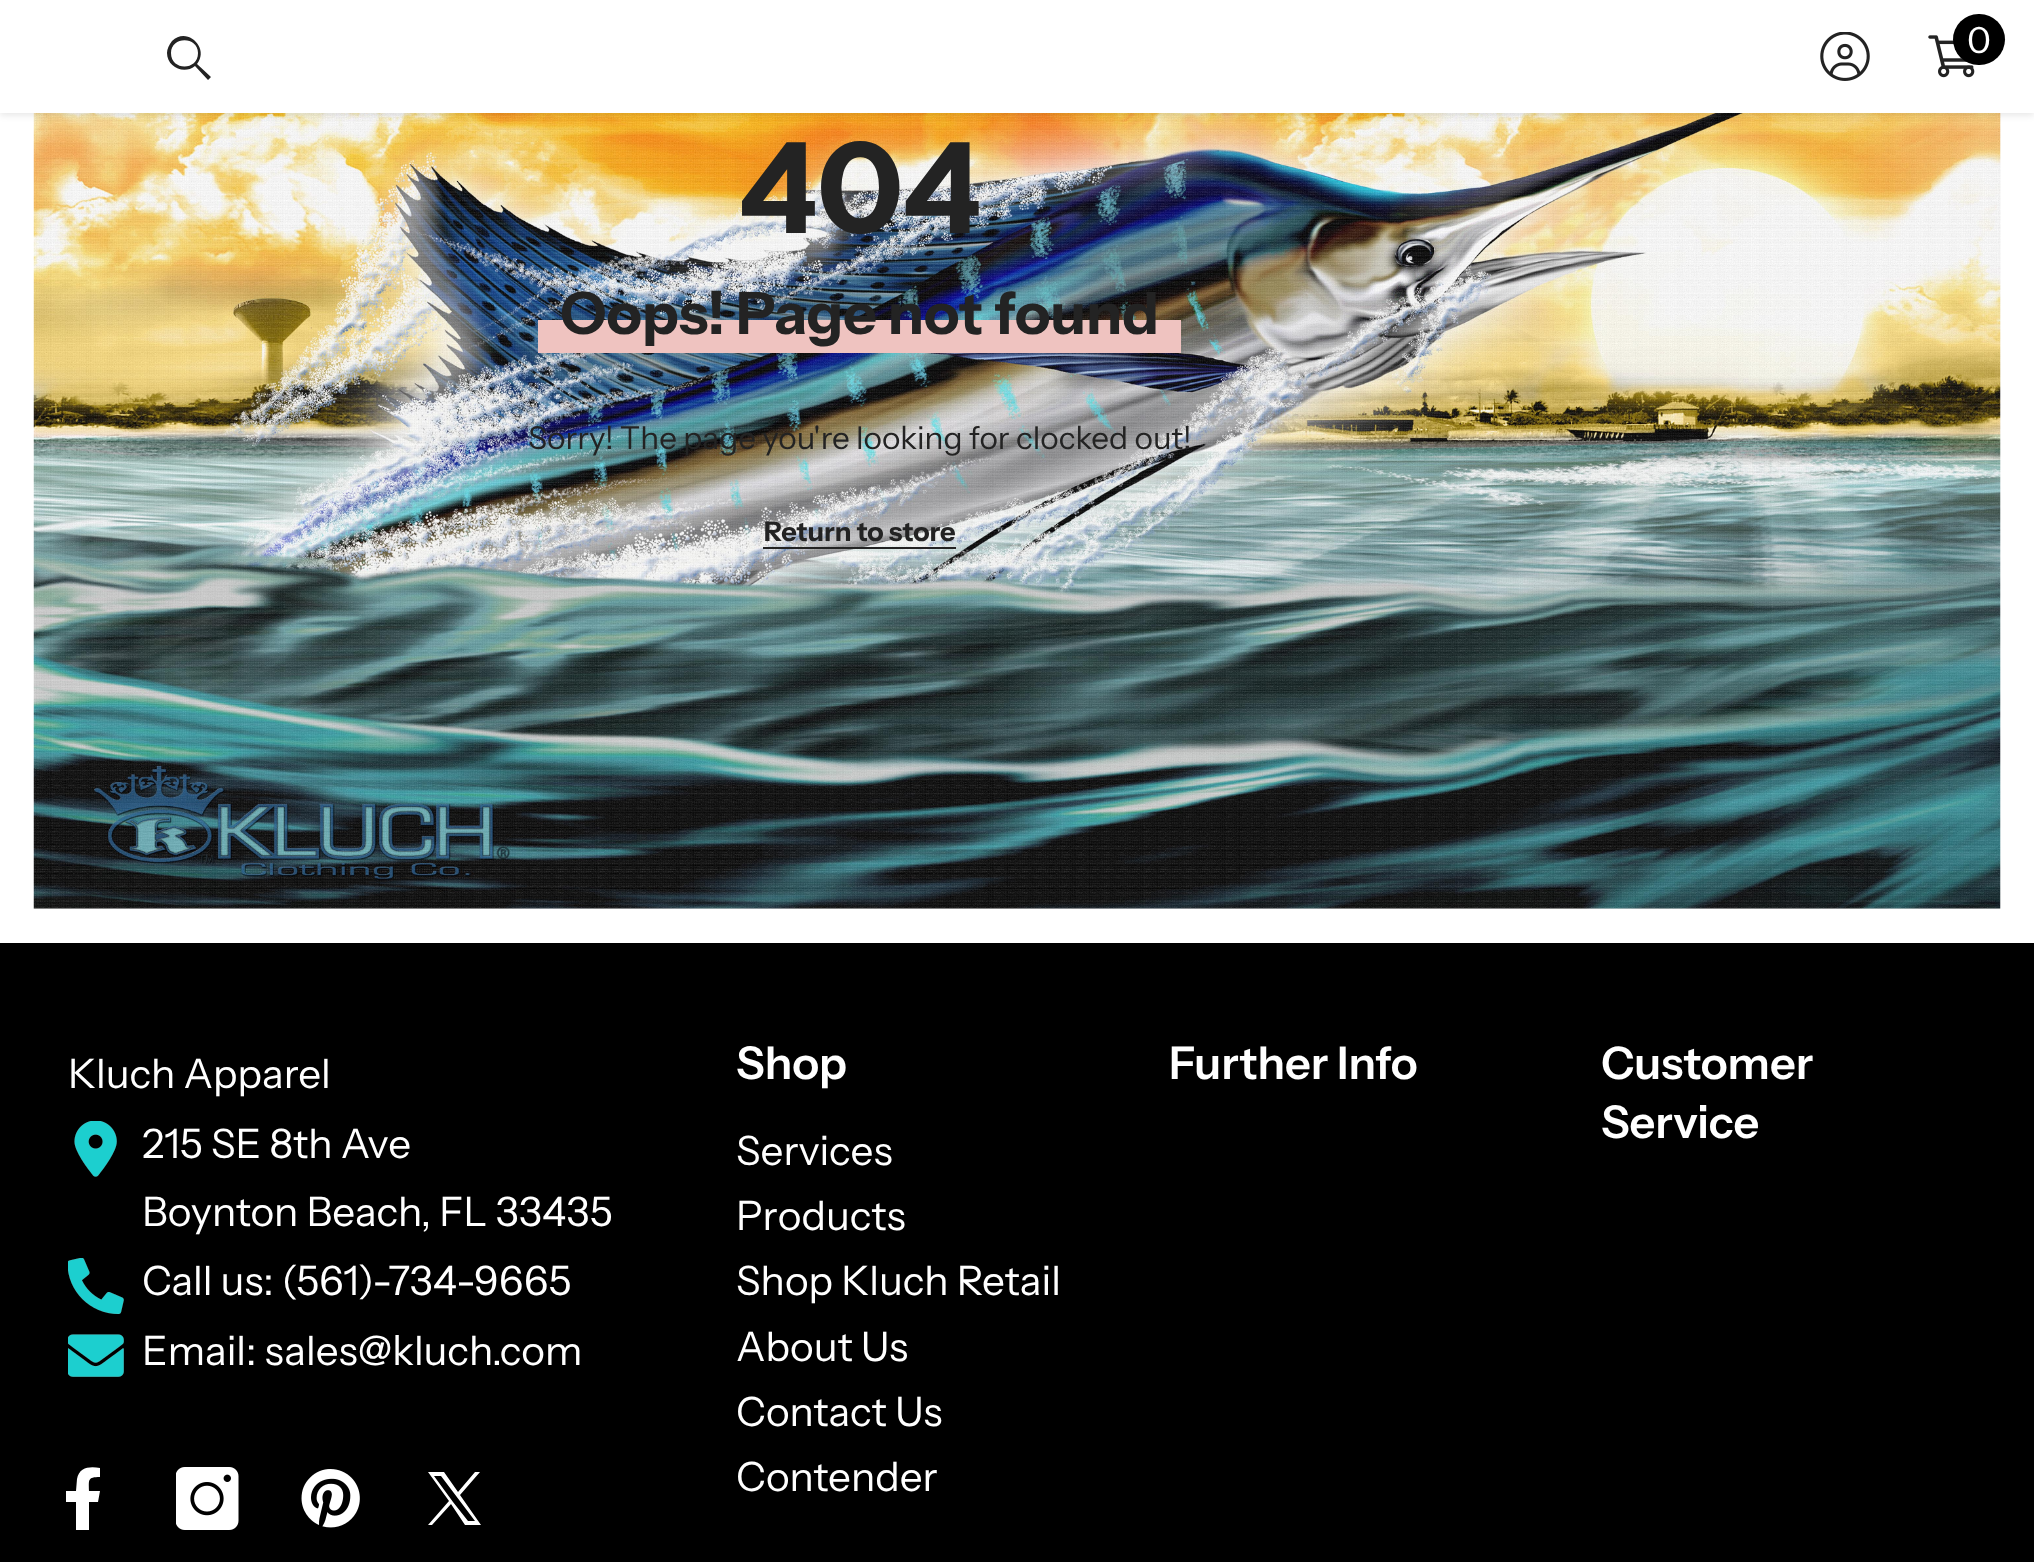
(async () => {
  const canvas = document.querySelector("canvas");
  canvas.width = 2034;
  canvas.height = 1562;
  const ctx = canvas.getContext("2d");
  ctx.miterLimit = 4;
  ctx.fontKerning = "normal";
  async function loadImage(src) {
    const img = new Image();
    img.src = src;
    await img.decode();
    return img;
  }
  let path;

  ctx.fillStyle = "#ffffff";
  ctx.fillRect(0, 0, 2034, 1562);
  ctx.drawImage(await loadImage("img/3.png"), 33, 113, 1968, 796);
  ctx.fillStyle = "rgba(0, 0, 0, 0.1)";
  ctx.filter = "blur(3.5px)";
  ctx.beginPath();
  ctx.rect(0, 2, 2034, 113);
  ctx.fill();
  ctx.filter = "none";
  ctx.fillStyle = "#ffffff";
  ctx.fillRect(0, 0, 2034, 113);
  ctx.fillStyle = "#232323";
  path = new Path2D("M167 53C167 67 184 75 195 66L208 80L211 77L197 64C210 48 187 26 172 41C169 45 167 49 167 53ZM171 53C171 36 198 36 198 53C198 71 171 71 171 53Z");
  ctx.fill(path);
  ctx.drawImage(await loadImage("img/1.png"), 1820, 32, 50, 49);
  ctx.drawImage(await loadImage("img/2.png"), 1928, 35, 47, 43);
  ctx.fillStyle = "#000000";
  ctx.beginPath();
  ctx.roundRect(1953, 14, 52, 51, 25.5);
  ctx.fill();
  for (const [x, y, w, h, color] of [
    [538, 320, 643, 33, "#efc3c0"],
    [763, 547, 193, 2, "#232323"],
    [0, 943, 2034, 619, "#000000"],
  ]) {
    ctx.fillStyle = color;
    ctx.fillRect(x, y, w, h);
  }
  ctx.drawImage(await loadImage("img/4.png"), 74, 1121, 43, 56);
  ctx.drawImage(await loadImage("img/5.png"), 68, 1258, 56, 56);
  ctx.drawImage(await loadImage("img/6.png"), 68, 1334, 56, 43);
  ctx.fillStyle = "#ffffff";
  path = new Path2D("M98 1502L100 1491H89C89 1480 87 1477 100 1477V1468C90 1466 79 1467 77 1479L76 1491H66V1502H76V1530H89V1502Z");
  ctx.fill(path);
  ctx.drawImage(await loadImage("img/7.png"), 176, 1467, 63, 63);
  ctx.drawImage(await loadImage("img/8.png"), 301, 1469, 59, 59);
  path = new Path2D("M460 1495L480 1472H475L458 1492L444 1472H428L449 1501L428 1525H432L451 1504L465 1525H481ZM453 1502L434 1476H441L475 1521H468Z");
  ctx.fill(path);
  ctx.font = "36px Instrument Sans";
  ctx.fillText("0", 1967, 53);
  ctx.font = "bold 126px Instrument Sans";
  ctx.fillStyle = "#232323";
  ctx.fillText("404", 739, 233);
  ctx.font = "bold 58.5px Instrument Sans";
  ctx.fillText("Oops! Page not found", 560, 334);
  ctx.font = "31.5px Instrument Sans";
  ctx.fillText("Sorry! The page you're looking for clocked out!", 528, 449);
  ctx.font = "bold 27px Instrument Sans";
  ctx.fillText("Return to store", 764, 541);
  ctx.font = "40.5px Instrument Sans";
  ctx.fillStyle = "#ffffff";
  for (const [text, x, y] of [
    ["Kluch Apparel", 68, 1088],
    ["215 SE 8th Ave", 142, 1158],
    ["Boynton Beach, FL 33435", 142, 1226],
    ["Call us: (561)-734-9665", 142, 1295],
    ["Email: sales@kluch.com", 142, 1365],
  ]) {
    ctx.fillText(text, x, y);
  }
  ctx.font = "600 45px Instrument Sans";
  ctx.fillText("Shop", 736, 1079);
  ctx.font = "40.5px Instrument Sans";
  for (const [text, x, y] of [
    ["Services", 736, 1165],
    ["Products", 736, 1230],
    ["Shop Kluch Retail", 736, 1295],
    ["About Us", 736, 1361],
    ["Contact Us", 736, 1426],
    ["Contender", 736, 1491],
  ]) {
    ctx.fillText(text, x, y);
  }
  ctx.font = "600 45px Instrument Sans";
  for (const [text, x, y] of [
    ["Further Info", 1169, 1079],
    ["Customer", 1601, 1079],
    ["Service", 1601, 1138],
  ]) {
    ctx.fillText(text, x, y);
  }
})();
